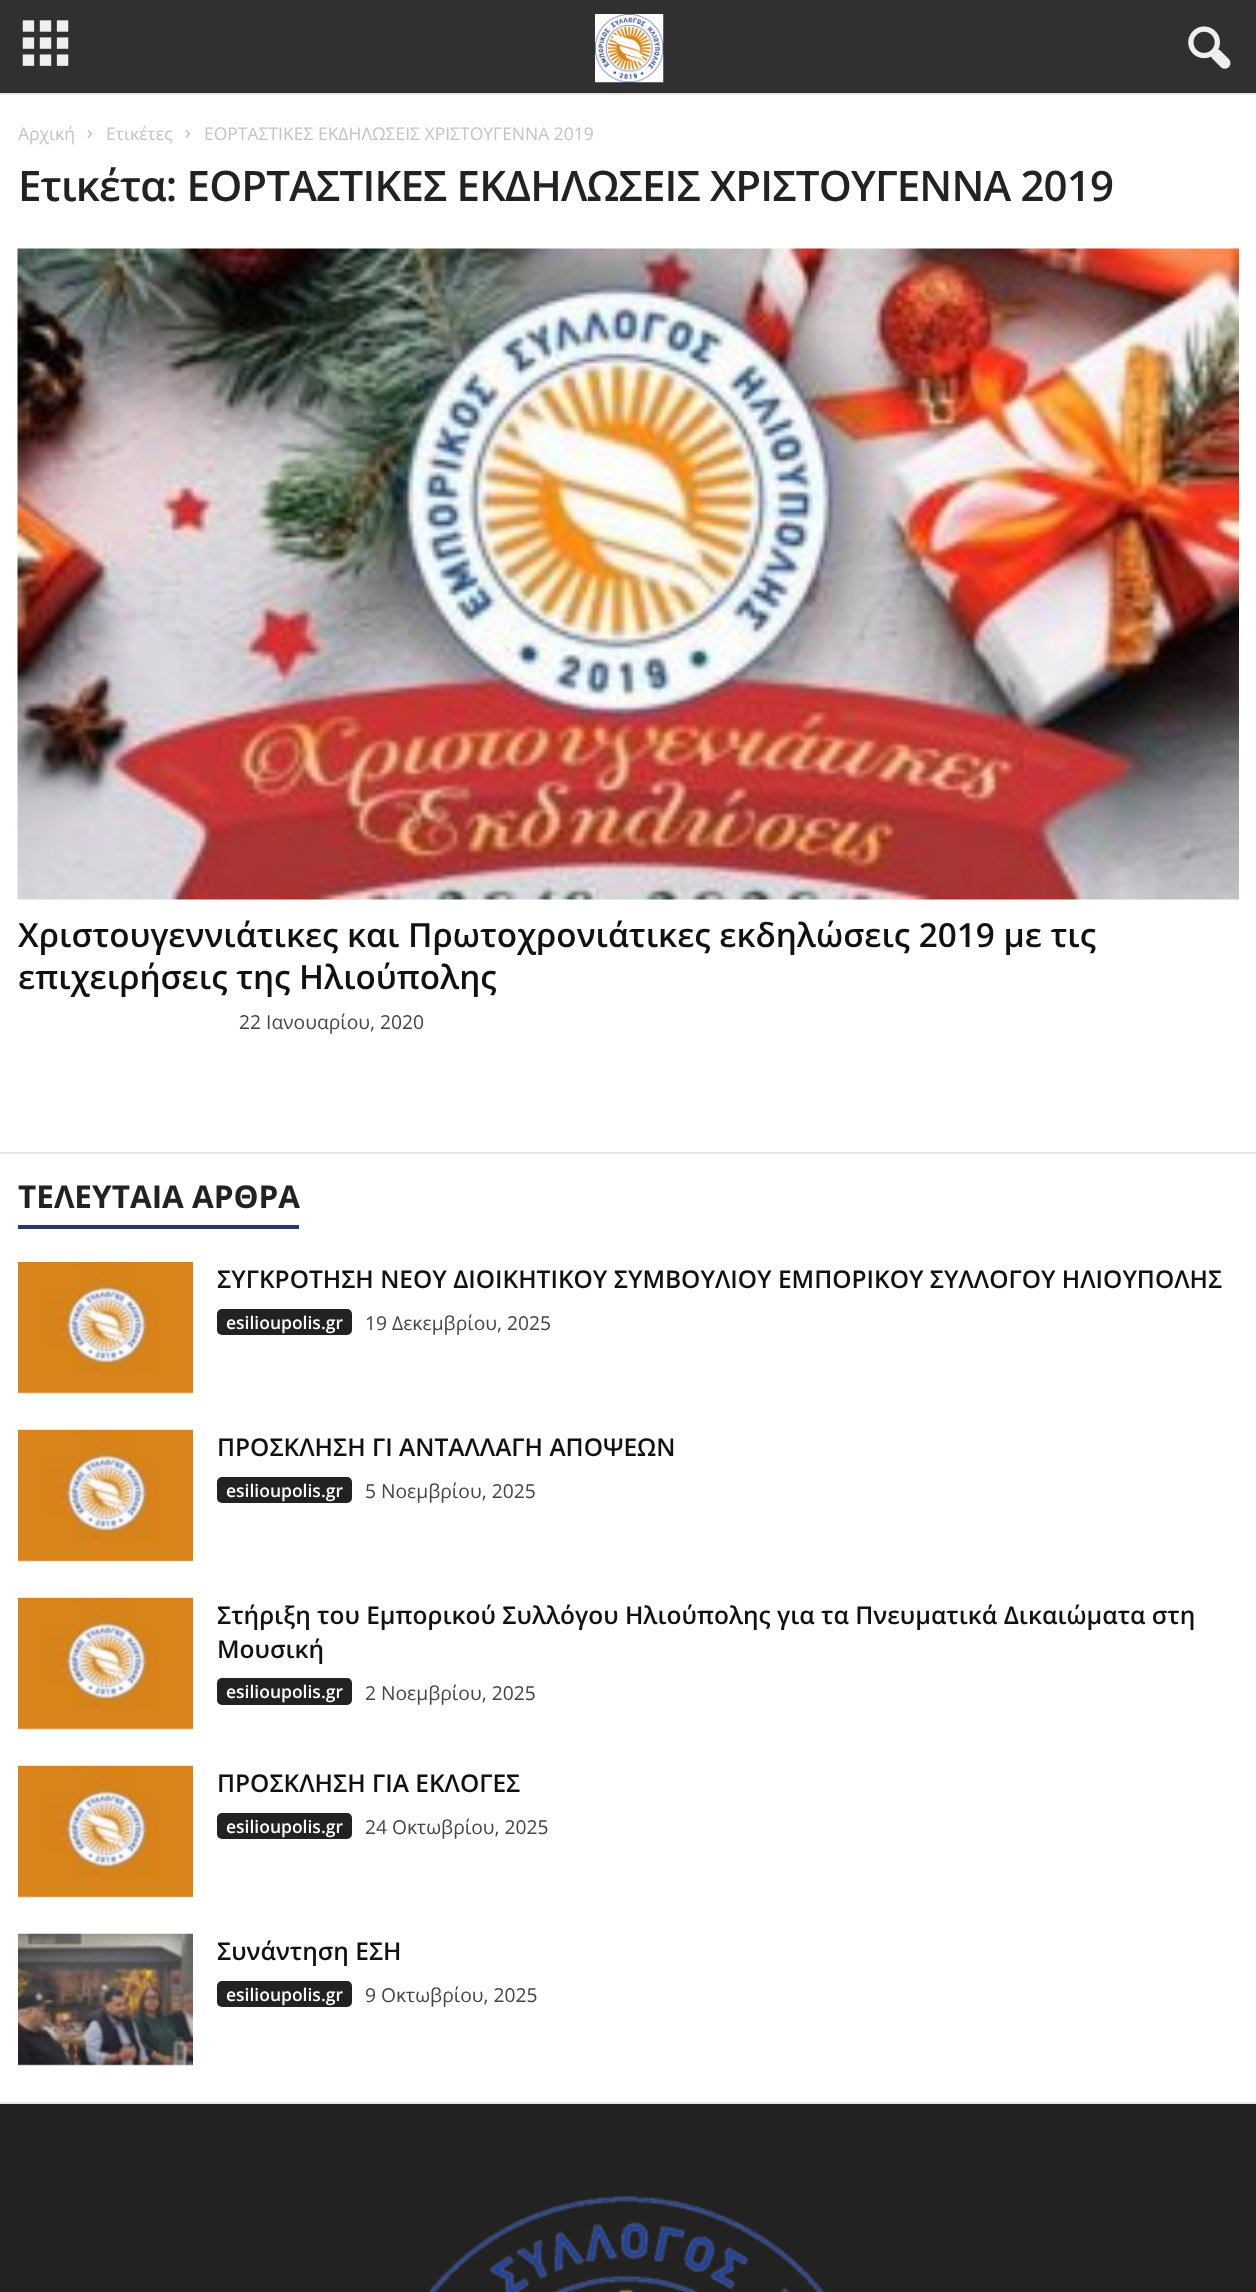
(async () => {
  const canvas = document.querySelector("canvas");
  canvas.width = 1256;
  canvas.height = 2292;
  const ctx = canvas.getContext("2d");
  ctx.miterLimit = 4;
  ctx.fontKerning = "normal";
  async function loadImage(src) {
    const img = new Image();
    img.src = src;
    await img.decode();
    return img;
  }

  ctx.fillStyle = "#e6e6e6";
  ctx.fillRect(0, 0, 1256, 2292);
  ctx.fillStyle = "#303030";
  ctx.fillRect(0, 0, 1256, 93);
  ctx.drawImage(await loadImage("img/1.png"), 22, 20, 47, 46);
  ctx.drawImage(await loadImage("img/2.png"), 595, 14, 69, 69);
  ctx.drawImage(await loadImage("img/3.png"), 1188, 26, 43, 43);
  ctx.fillStyle = "#ffffff";
  ctx.fillRect(0, 95, 1256, 2007);
  ctx.drawImage(await loadImage("img/4.png"), 87, 129, 6, 9);
  ctx.drawImage(await loadImage("img/4.png"), 185, 129, 6, 9);
  ctx.drawImage(await loadImage("img/5.png"), 17, 248, 1222, 652);
  ctx.fillStyle = "#e6e6e6";
  ctx.fillRect(0, 1152, 1256, 2);
  ctx.fillStyle = "#293875";
  ctx.fillRect(18, 1225, 281, 4);
  ctx.drawImage(await loadImage("img/6.png"), 18, 1262, 175, 132);
  ctx.fillStyle = "#222222";
  ctx.beginPath();
  ctx.roundRect(217, 1309, 135, 26, 5);
  ctx.fill();
  ctx.drawImage(await loadImage("img/7.png"), 18, 1429, 175, 133);
  ctx.beginPath();
  ctx.roundRect(217, 1477, 135, 26, 5);
  ctx.fill();
  ctx.drawImage(await loadImage("img/8.png"), 18, 1597, 175, 133);
  ctx.beginPath();
  ctx.roundRect(217, 1678, 135, 27, 5);
  ctx.fill();
  ctx.drawImage(await loadImage("img/9.png"), 18, 1765, 175, 133);
  ctx.beginPath();
  ctx.roundRect(217, 1813, 135, 26, 5);
  ctx.fill();
  ctx.drawImage(await loadImage("img/10.png"), 18, 1933, 175, 133);
  ctx.beginPath();
  ctx.roundRect(217, 1981, 135, 26, 5);
  ctx.fill();
  ctx.fillRect(0, 2104, 1256, 188);
  ctx.drawImage(await loadImage("img/11.png"), 428, 2195, 397, 97);
  ctx.font = "17.5px Open Sans";
  ctx.fillStyle = "#c3c3c3";
  for (const [text, x, y] of [
    ["Αρχική", 18, 140],
    ["Ετικέτες", 106, 140],
    ["ΕΟΡΤΑΣΤΙΚΕΣ ΕΚΔΗΛΩΣΕΙΣ ΧΡΙΣΤΟΥΓΕΝΝΑ 2019", 204, 140],
  ]) {
    ctx.fillText(text, x, y);
  }
  ctx.letterSpacing = "-0.85px";
  ctx.font = "600 42px Open Sans";
  ctx.fillStyle = "#222222";
  ctx.fillText("Ετικέτα: ΕΟΡΤΑΣΤΙΚΕΣ ΕΚΔΗΛΩΣΕΙΣ ΧΡΙΣΤΟΥΓΕΝΝΑ 2019", 18, 201);
  ctx.letterSpacing = "0px";
  ctx.font = "600 33.25px Open Sans";
  ctx.fillStyle = "#111111";
  ctx.fillText("Χριστουγεννιάτικες και Πρωτοχρονιάτικες εκδηλώσεις 2019 με τις", 18, 947);
  ctx.fillText("επιχειρήσεις της Ηλιούπολης", 18, 989);
  ctx.font = "19.25px Open Sans";
  ctx.fillStyle = "#444444";
  ctx.fillText("22 Ιανουαρίου, 2020", 239, 1029);
  ctx.font = "bold 31.5px Open Sans";
  ctx.fillStyle = "#222222";
  ctx.fillText("ΤΕΛΕΥΤΑΙΑ ΑΡΘΡΑ", 18, 1208);
  ctx.font = "600 24.5px Open Sans";
  ctx.fillStyle = "#111111";
  ctx.fillText("ΣΥΓΚΡΟΤΗΣΗ ΝΕΟΥ ΔΙΟΙΚΗΤΙΚΟΥ ΣΥΜΒΟΥΛΙΟΥ ΕΜΠΟΡΙΚΟΥ ΣΥΛΛΟΓΟΥ ΗΛΙΟΥΠΟΛΗΣ", 217, 1288);
  ctx.font = "600 17.5px Open Sans";
  ctx.fillStyle = "#ffffff";
  ctx.fillText("esilioupolis.gr", 226, 1329);
  ctx.font = "19.25px Open Sans";
  ctx.fillStyle = "#444444";
  ctx.fillText("19 Δεκεμβρίου, 2025", 365, 1330);
  ctx.font = "600 24.5px Open Sans";
  ctx.fillStyle = "#111111";
  ctx.fillText("ΠΡΟΣΚΛΗΣΗ ΓΙ ΑΝΤΑΛΛΑΓΗ ΑΠΟΨΕΩΝ", 217, 1456);
  ctx.font = "600 17.5px Open Sans";
  ctx.fillStyle = "#ffffff";
  ctx.fillText("esilioupolis.gr", 226, 1497);
  ctx.font = "19.25px Open Sans";
  ctx.fillStyle = "#444444";
  ctx.fillText("5 Νοεμβρίου, 2025", 365, 1498);
  ctx.font = "600 24.5px Open Sans";
  ctx.fillStyle = "#111111";
  ctx.fillText("Στήριξη του Εμπορικού Συλλόγου Ηλιούπολης για τα Πνευματικά Δικαιώματα στη", 217, 1624);
  ctx.fillText("Μουσική", 217, 1658);
  ctx.font = "600 17.5px Open Sans";
  ctx.fillStyle = "#ffffff";
  ctx.fillText("esilioupolis.gr", 226, 1698);
  ctx.font = "19.25px Open Sans";
  ctx.fillStyle = "#444444";
  ctx.fillText("2 Νοεμβρίου, 2025", 365, 1700);
  ctx.font = "600 24.5px Open Sans";
  ctx.fillStyle = "#111111";
  ctx.fillText("ΠΡΟΣΚΛΗΣΗ ΓΙΑ ΕΚΛΟΓΕΣ", 217, 1792);
  ctx.font = "600 17.5px Open Sans";
  ctx.fillStyle = "#ffffff";
  ctx.fillText("esilioupolis.gr", 226, 1833);
  ctx.font = "19.25px Open Sans";
  ctx.fillStyle = "#444444";
  ctx.fillText("24 Οκτωβρίου, 2025", 365, 1834);
  ctx.font = "600 24.5px Open Sans";
  ctx.fillStyle = "#111111";
  ctx.fillText("Συνάντηση ΕΣΗ", 217, 1960);
  ctx.font = "600 17.5px Open Sans";
  ctx.fillStyle = "#ffffff";
  ctx.fillText("esilioupolis.gr", 226, 2001);
  ctx.font = "19.25px Open Sans";
  ctx.fillStyle = "#444444";
  ctx.fillText("9 Οκτωβρίου, 2025", 365, 2002);
})();
